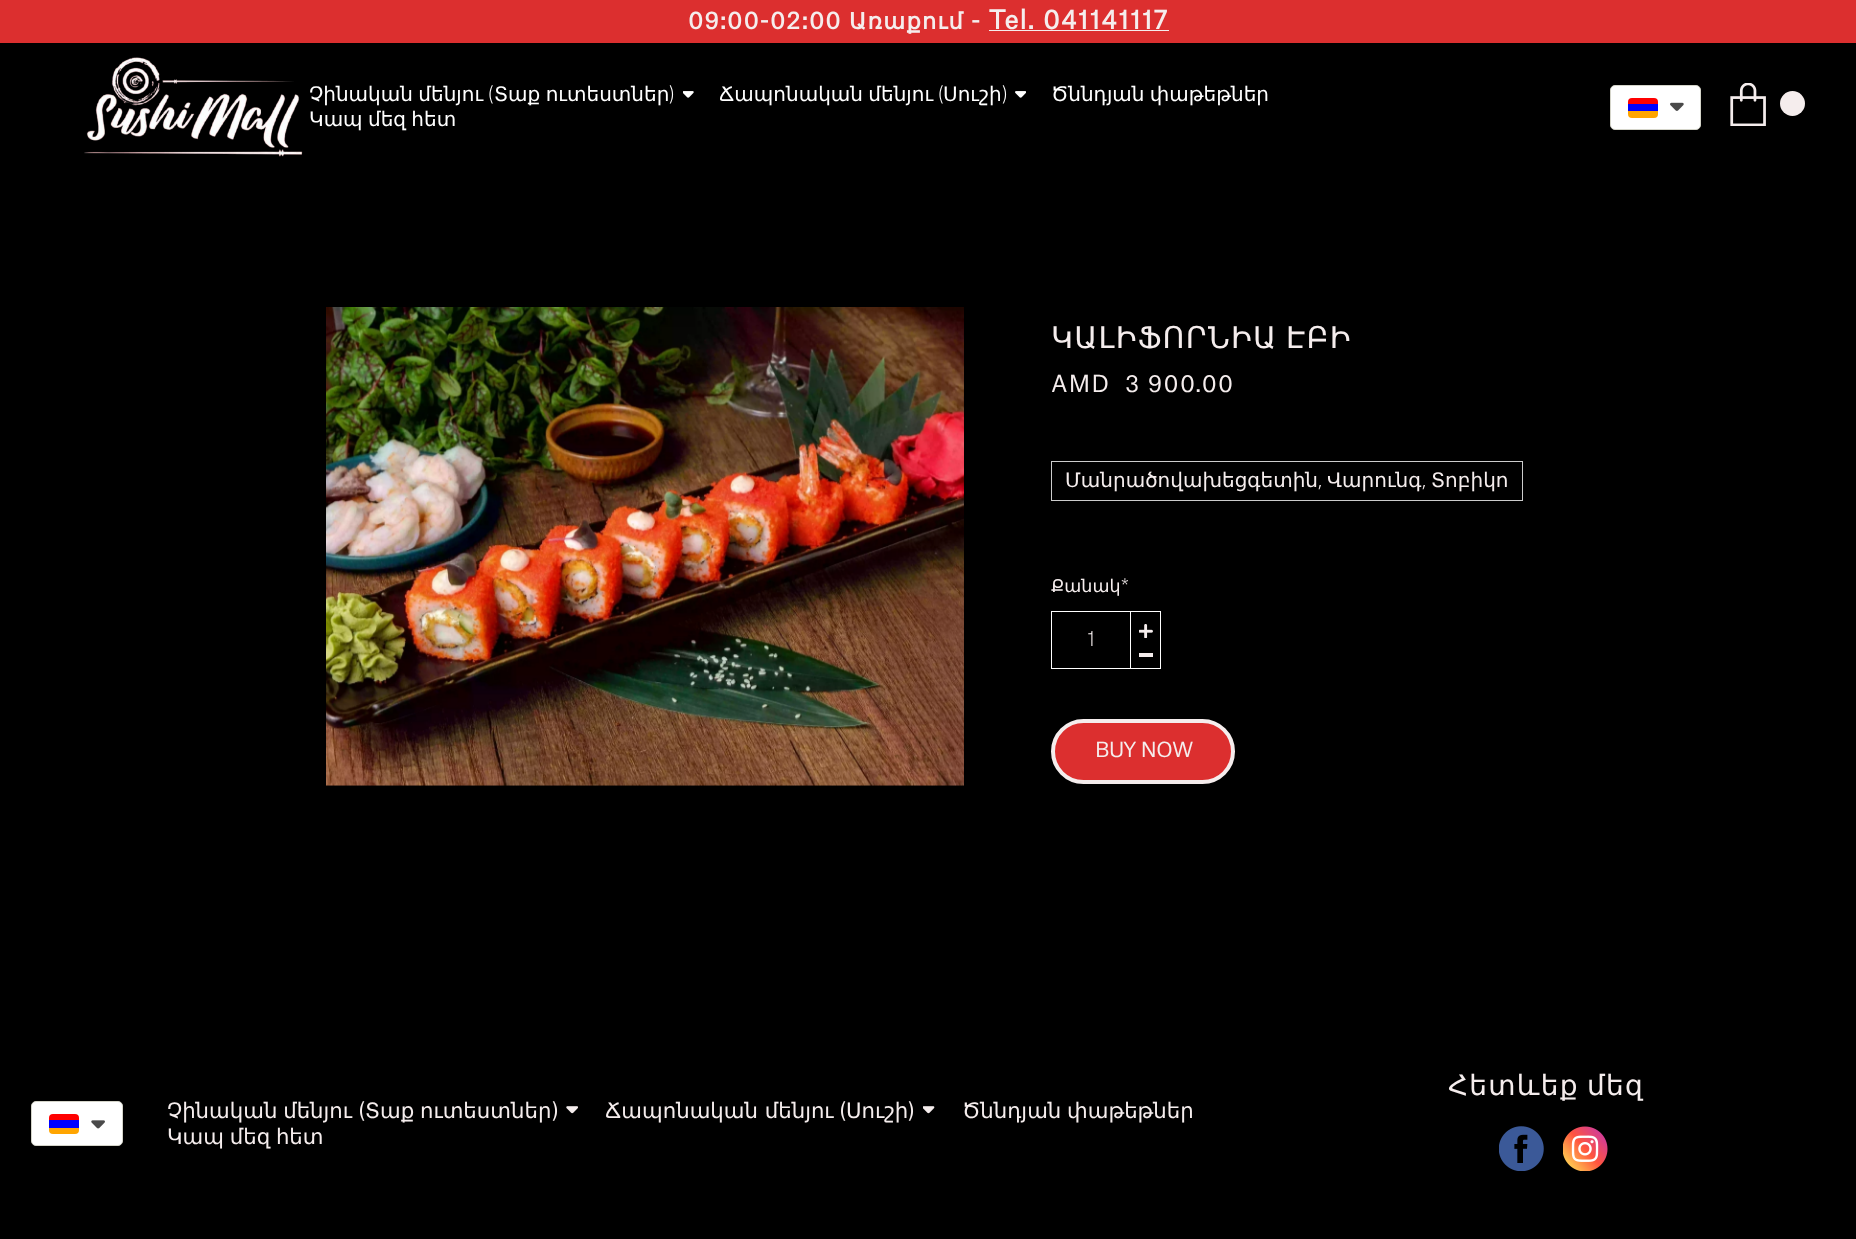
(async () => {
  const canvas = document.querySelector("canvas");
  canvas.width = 1856;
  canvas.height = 1239;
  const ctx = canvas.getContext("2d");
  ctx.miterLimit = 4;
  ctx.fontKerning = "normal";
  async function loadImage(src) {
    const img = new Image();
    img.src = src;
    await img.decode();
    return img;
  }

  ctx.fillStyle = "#000000";
  ctx.fillRect(0, 0, 1856, 1239);
  ctx.fillStyle = "#dc2f2f";
  ctx.fillRect(0, 0, 1856, 43);
  ctx.fillStyle = "#f5eded";
  ctx.fillRect(989, 30, 180, 1);
  ctx.drawImage(await loadImage("img/1.png"), 84, 57, 219, 100);
  ctx.drawImage(await loadImage("img/2.png"), 683, 91, 11, 7);
  ctx.drawImage(await loadImage("img/3.png"), 1015, 91, 11, 7);
  ctx.fillStyle = "#ffffff";
  ctx.beginPath();
  ctx.roundRect(1610.5, 85.5, 90, 44, 4.5);
  ctx.fill();
  ctx.strokeStyle = "#d4d4c9";
  ctx.stroke();
  ctx.fillStyle = "#ff0000";
  ctx.beginPath();
  ctx.roundRect(1628, 98, 30, 6, [4, 4, 0, 0]);
  ctx.fill();
  ctx.fillStyle = "#0000ff";
  ctx.fillRect(1628, 104, 30, 7);
  ctx.fillStyle = "#ffa500";
  ctx.beginPath();
  ctx.roundRect(1628, 111, 30, 7, [0, 0, 4, 4]);
  ctx.fill();
  ctx.drawImage(await loadImage("img/4.png"), 1670, 102, 14, 9);
  ctx.drawImage(await loadImage("img/5.png"), 1730, 83, 36, 43);
  ctx.fillStyle = "#f5eded";
  ctx.beginPath();
  ctx.arc(1792.5, 103.5, 12.5, 0, Math.PI * 2);
  ctx.fill();
  ctx.drawImage(await loadImage("img/6.png"), 326, 307, 638, 479);
  ctx.strokeStyle = "#cccccc";
  ctx.strokeRect(1051.5, 461.5, 471, 39);
  ctx.strokeStyle = "#ffffff";
  ctx.strokeRect(1051.5, 611.5, 79, 57);
  for (const [x, y, w, h, color] of [
    [1131, 611, 30, 1, "#ffffff"],
    [1160, 611, 1, 58, "#ffffff"],
    [1131, 668, 30, 1, "#ffffff"],
  ]) {
    ctx.fillStyle = color;
    ctx.fillRect(x, y, w, h);
  }
  ctx.drawImage(await loadImage("img/7.png"), 1139, 624, 14, 14);
  ctx.fillStyle = "#f5eded";
  ctx.fillRect(1139, 653, 14, 4);
  ctx.fillStyle = "#dc2f2f";
  ctx.beginPath();
  ctx.roundRect(1053, 721, 180, 61, 30.5);
  ctx.fill();
  ctx.strokeStyle = "#f5eded";
  ctx.lineWidth = 4;
  ctx.stroke();
  ctx.drawImage(await loadImage("img/8.png"), 1499, 1126, 45, 45);
  ctx.drawImage(await loadImage("img/9.png"), 1563, 1126, 45, 45);
  ctx.fillStyle = "#ffffff";
  ctx.beginPath();
  ctx.roundRect(31.5, 1101.5, 91, 44, 4.5);
  ctx.fill();
  ctx.strokeStyle = "#d4d4c9";
  ctx.lineWidth = 1;
  ctx.stroke();
  ctx.fillStyle = "#ff0000";
  ctx.beginPath();
  ctx.roundRect(49, 1114, 30, 6, [4, 4, 0, 0]);
  ctx.fill();
  ctx.fillStyle = "#0000ff";
  ctx.fillRect(49, 1120, 30, 8);
  ctx.fillStyle = "#ffa500";
  ctx.beginPath();
  ctx.roundRect(49, 1128, 30, 6, [0, 0, 4, 4]);
  ctx.fill();
  ctx.drawImage(await loadImage("img/10.png"), 91, 1120, 14, 9);
  ctx.drawImage(await loadImage("img/11.png"), 566, 1106, 12, 8);
  ctx.drawImage(await loadImage("img/12.png"), 923, 1106, 12, 8);
  ctx.letterSpacing = "1.25px";
  ctx.font = "bold 22.5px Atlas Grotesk";
  ctx.fillStyle = "#f5eded";
  ctx.fillText("09:00-02:00", 688, 29);
  ctx.font = "bold 22.5px DejaVu Sans";
  ctx.fillText("Առաքում", 849, 29);
  ctx.font = "bold 22.5px Atlas Grotesk";
  ctx.fillText("-", 971, 29);
  ctx.font = "bold 25px Atlas Grotesk";
  ctx.fillText("Tel. 041141117", 989, 29);
  ctx.letterSpacing = "0px";
  ctx.wordSpacing = "-1px";
  ctx.font = "20px DejaVu Sans";
  ctx.fillStyle = "#ffffff";
  ctx.fillText("Չինական մենյու", 309, 101);
  ctx.wordSpacing = "0px";
  ctx.font = "100 20px Atlas Grotesk";
  ctx.fillText("(", 488, 101);
  ctx.wordSpacing = "-1px";
  ctx.font = "20px DejaVu Sans";
  ctx.fillText("Տաք ուտեստներ", 494, 101);
  ctx.wordSpacing = "0px";
  ctx.font = "100 20px Atlas Grotesk";
  ctx.fillText(")", 669, 101);
  ctx.wordSpacing = "-1px";
  ctx.font = "20px DejaVu Sans";
  ctx.fillText("Ճապոնական մենյու", 719, 101);
  ctx.wordSpacing = "0px";
  ctx.font = "100 20px Atlas Grotesk";
  ctx.fillText("(", 938, 101);
  ctx.font = "20px DejaVu Sans";
  ctx.fillText("Սուշի", 943, 101);
  ctx.font = "100 20px Atlas Grotesk";
  ctx.fillText(")", 1002, 101);
  ctx.wordSpacing = "-1px";
  ctx.font = "20px DejaVu Sans";
  ctx.fillText("Ծննդյան փաթեթներ", 1051, 101);
  ctx.fillText("Կապ մեզ հետ", 309, 126);
  ctx.letterSpacing = "1.25px";
  ctx.wordSpacing = "-2px";
  ctx.font = "30px DejaVu Sans";
  ctx.fillStyle = "#f5eded";
  ctx.fillText("ԿԱԼԻՖՈՐՆԻԱ ԷԲԻ", 1051, 348);
  ctx.wordSpacing = "0px";
  ctx.font = "22.5px Atlas Grotesk";
  ctx.fillText("AMD", 1051, 392);
  ctx.fillText("3 900.00", 1125, 392);
  ctx.letterSpacing = "0px";
  ctx.font = "20px DejaVu Sans";
  ctx.fillText("Մանրածովախեցգետին", 1065, 487);
  ctx.font = "100 20px Atlas Grotesk";
  ctx.fillText(",", 1318, 487);
  ctx.font = "20px DejaVu Sans";
  ctx.fillText("Վարունգ", 1327, 487);
  ctx.font = "100 20px Atlas Grotesk";
  ctx.fillText(",", 1422, 487);
  ctx.font = "20px DejaVu Sans";
  ctx.fillText("Տոբիկո", 1431, 487);
  ctx.font = "17.5px DejaVu Sans";
  ctx.fillText("Քանակ", 1051, 592);
  ctx.font = "100 17.5px Atlas Grotesk";
  ctx.fillText("*", 1121, 592);
  ctx.font = "100 20px Atlas Grotesk";
  ctx.fillText("1", 1087, 646);
  ctx.letterSpacing = "-0.5px";
  ctx.font = "20px Atlas Grotesk";
  ctx.fillText("BUY NOW", 1095, 757);
  ctx.letterSpacing = "1.25px";
  ctx.wordSpacing = "-2px";
  ctx.font = "28px DejaVu Sans";
  ctx.fillText("Հետևեք մեզ", 1448, 1095);
  ctx.letterSpacing = "0px";
  ctx.wordSpacing = "-1px";
  ctx.font = "21.25px DejaVu Sans";
  ctx.fillText("Չինական մենյու", 167, 1118);
  ctx.wordSpacing = "0px";
  ctx.font = "21.25px Atlas Grotesk";
  ctx.fillText("(", 358, 1118);
  ctx.wordSpacing = "-1px";
  ctx.font = "21.25px DejaVu Sans";
  ctx.fillText("Տաք ուտեստներ", 365, 1118);
  ctx.wordSpacing = "0px";
  ctx.font = "21.25px Atlas Grotesk";
  ctx.fillText(")", 552, 1118);
  ctx.font = "21.25px DejaVu Sans";
  ctx.fillText("Ճապոնական մենյու", 605, 1118);
  ctx.font = "21.25px Atlas Grotesk";
  ctx.fillText("(", 839, 1118);
  ctx.font = "21.25px DejaVu Sans";
  ctx.fillText("Սուշի", 846, 1118);
  ctx.font = "21.25px Atlas Grotesk";
  ctx.fillText(")", 908, 1118);
  ctx.wordSpacing = "-1px";
  ctx.font = "21.25px DejaVu Sans";
  ctx.fillText("Ծննդյան փաթեթներ", 962, 1118);
  ctx.fillText("Կապ մեզ հետ", 167, 1144);
})();
